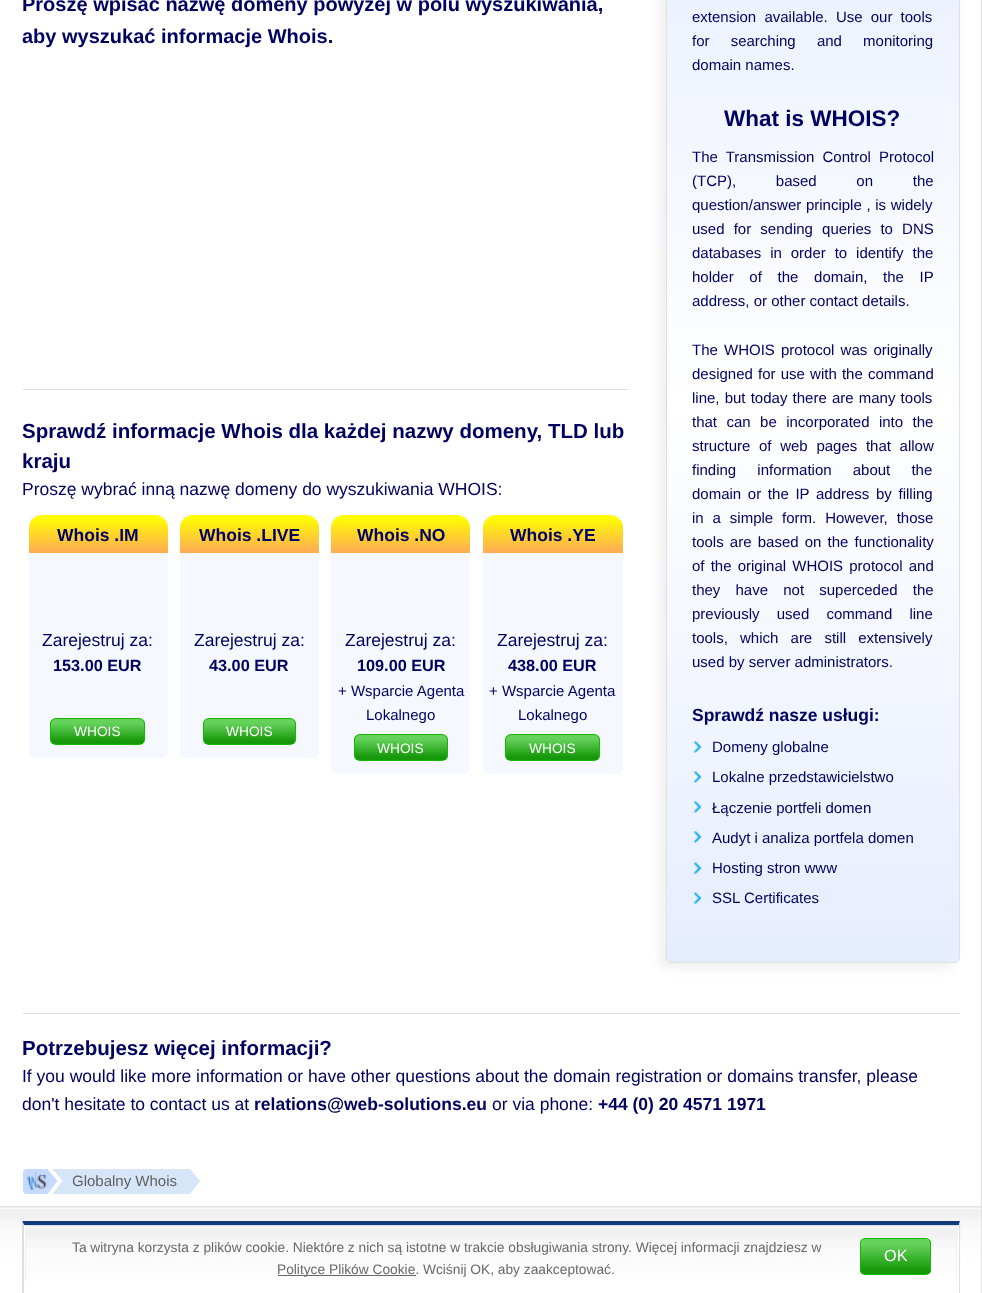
(async () => {
  const canvas = document.querySelector("canvas");
  canvas.width = 982;
  canvas.height = 1293;
  const ctx = canvas.getContext("2d");
  ctx.miterLimit = 4;
  ctx.fontKerning = "normal";
  async function loadImage(src) {
    const img = new Image();
    img.src = src;
    await img.decode();
    return img;
  }
  let gradient, path;

  ctx.fillStyle = "#ffffff";
  ctx.fillRect(0, 0, 982, 1293);
  ctx.fillStyle = "#dedede";
  ctx.fillRect(981, 0, 1, 1293);
  ctx.fillStyle = "#e0e0e0";
  ctx.fillRect(23, 389, 606, 1);
  ctx.fillStyle = "#f5f8ff";
  ctx.beginPath();
  ctx.roundRect(29, 515, 139, 243, 6);
  ctx.fill();
  gradient = ctx.createLinearGradient(29, 515, 29, 553);
  gradient.addColorStop(0.05, "#ffff00");
  gradient.addColorStop(1, "#ffaa56");
  ctx.fillStyle = gradient;
  ctx.beginPath();
  ctx.roundRect(29, 515, 139, 38, [13, 13, 0, 0]);
  ctx.fill();
  ctx.save();
  ctx.beginPath();
  ctx.roundRect(50, 718, 95, 27, 6);
  ctx.clip();
  gradient = ctx.createLinearGradient(51, 719, 51, 744);
  gradient.addColorStop(0.16, "#65d25b");
  gradient.addColorStop(0.89, "#159809");
  ctx.fillStyle = gradient;
  ctx.fillRect(50, 719, 95, 25);
  ctx.restore();
  ctx.beginPath();
  ctx.roundRect(50.5, 718.5, 94, 26, 5.5);
  ctx.strokeStyle = "#13ba00";
  ctx.stroke();
  ctx.fillStyle = "#f5f8ff";
  ctx.beginPath();
  ctx.roundRect(180, 515, 139, 243, 6);
  ctx.fill();
  gradient = ctx.createLinearGradient(180, 515, 180, 553);
  gradient.addColorStop(0.05, "#ffff00");
  gradient.addColorStop(1, "#ffaa56");
  ctx.fillStyle = gradient;
  ctx.beginPath();
  ctx.roundRect(180, 515, 139, 38, [13, 13, 0, 0]);
  ctx.fill();
  ctx.save();
  ctx.beginPath();
  ctx.roundRect(203, 718, 93, 27, 6);
  ctx.clip();
  gradient = ctx.createLinearGradient(204, 719, 204, 744);
  gradient.addColorStop(0.16, "#65d25b");
  gradient.addColorStop(0.89, "#159809");
  ctx.fillStyle = gradient;
  ctx.fillRect(203, 719, 93, 25);
  ctx.restore();
  ctx.beginPath();
  ctx.roundRect(203.5, 718.5, 92, 26, 5.5);
  ctx.stroke();
  ctx.fillStyle = "#f5f8ff";
  ctx.beginPath();
  ctx.roundRect(331, 515, 139, 259, 6);
  ctx.fill();
  gradient = ctx.createLinearGradient(331, 515, 331, 553);
  gradient.addColorStop(0.05, "#ffff00");
  gradient.addColorStop(1, "#ffaa56");
  ctx.fillStyle = gradient;
  ctx.beginPath();
  ctx.roundRect(331, 515, 139, 38, [13, 13, 0, 0]);
  ctx.fill();
  ctx.save();
  ctx.beginPath();
  ctx.roundRect(354, 734, 94, 27, 6);
  ctx.clip();
  gradient = ctx.createLinearGradient(355, 735, 355, 760);
  gradient.addColorStop(0.16, "#65d25b");
  gradient.addColorStop(0.89, "#159809");
  ctx.fillStyle = gradient;
  ctx.fillRect(354, 735, 94, 25);
  ctx.restore();
  ctx.beginPath();
  ctx.roundRect(354.5, 734.5, 93, 26, 5.5);
  ctx.stroke();
  ctx.fillStyle = "#f5f8ff";
  ctx.beginPath();
  ctx.roundRect(483, 515, 140, 259, 6);
  ctx.fill();
  gradient = ctx.createLinearGradient(483, 515, 483, 553);
  gradient.addColorStop(0.05, "#ffff00");
  gradient.addColorStop(1, "#ffaa56");
  ctx.fillStyle = gradient;
  ctx.beginPath();
  ctx.roundRect(483, 515, 140, 38, [13, 13, 0, 0]);
  ctx.fill();
  ctx.save();
  ctx.beginPath();
  ctx.roundRect(505, 734, 95, 27, 6);
  ctx.clip();
  gradient = ctx.createLinearGradient(506, 735, 506, 760);
  gradient.addColorStop(0.16, "#65d25b");
  gradient.addColorStop(0.89, "#159809");
  ctx.fillStyle = gradient;
  ctx.fillRect(505, 735, 95, 25);
  ctx.restore();
  ctx.beginPath();
  ctx.roundRect(505.5, 734.5, 94, 26, 5.5);
  ctx.stroke();
  ctx.fillStyle = "#efefef";
  ctx.filter = "blur(6px)";
  ctx.beginPath();
  ctx.roundRect(660, -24, 294, 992, 6);
  ctx.fill();
  ctx.filter = "none";
  ctx.save();
  ctx.beginPath();
  ctx.roundRect(666, -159, 294, 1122, 6);
  ctx.clip();
  gradient = ctx.createLinearGradient(813, -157, 813, 961);
  gradient.addColorStop(0, "#e6edfe");
  gradient.addColorStop(0.5, "#ffffff");
  gradient.addColorStop(1, "#e6edfe");
  ctx.fillStyle = gradient;
  ctx.fillRect(666, 0, 294, 961);
  gradient = ctx.createLinearGradient(813, 961, 813, 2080);
  gradient.addColorStop(0, "#e6edfe");
  gradient.addColorStop(0.5, "#ffffff");
  gradient.addColorStop(1, "#e6edfe");
  ctx.fillStyle = gradient;
  ctx.fillRect(666, 961, 294, 2);
  ctx.restore();
  ctx.beginPath();
  ctx.roundRect(666.5, -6.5, 293, 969, 5.5);
  ctx.strokeStyle = "#e0e0e0";
  ctx.stroke();
  ctx.drawImage(await loadImage("img/1.png"), 693, 741, 9, 12);
  ctx.drawImage(await loadImage("img/2.png"), 693, 771, 9, 12);
  ctx.drawImage(await loadImage("img/3.png"), 693, 801, 9, 12);
  ctx.drawImage(await loadImage("img/4.png"), 693, 831, 9, 12);
  ctx.drawImage(await loadImage("img/5.png"), 693, 862, 9, 12);
  ctx.drawImage(await loadImage("img/6.png"), 693, 892, 9, 12);
  ctx.fillStyle = "#dfdfdf";
  ctx.fillRect(23, 1013, 937, 1);
  ctx.fillStyle = "#c6daff";
  ctx.beginPath();
  ctx.roundRect(23, 1169, 25, 25, [4, 0, 0, 4]);
  ctx.fill();
  ctx.drawImage(await loadImage("img/7.png"), 27, 1171, 20, 19);
  path = new Path2D("M47.5 1194V1169L57.5 1181Z");
  ctx.fill(path);
  ctx.fillStyle = "#d6e5f8";
  ctx.fillRect(73, 1169, 117, 25);
  path = new Path2D("M190 1194V1169L200 1181Z");
  ctx.fill(path);
  ctx.drawImage(await loadImage("img/8.png"), 0, 1206, 982, 87);
  ctx.drawImage(await loadImage("img/9.png"), 25, 1225, 936, 68);
  ctx.fillStyle = "#113d80";
  path = new Path2D("M22 1221H960L959 1225H24Z");
  ctx.fill(path);
  ctx.fillStyle = "#dedede";
  path = new Path2D("M960 1221V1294H959V1225Z");
  ctx.fill(path);
  path = new Path2D("M22 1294V1221L24 1225V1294Z");
  ctx.fill(path);
  for (const [x, y, w, h, color] of [
    [958, 1225, 1, 47, "#ffffff"],
    [24, 1225, 1, 26, "#ffffff"],
    [956, 1238, 1, 43, "#f1f1f1"],
    [25, 1238, 1, 43, "#f1f1f1"],
    [278, 1275, 138, 1, "#696969"],
  ]) {
    ctx.fillStyle = color;
    ctx.fillRect(x, y, w, h);
  }
  ctx.save();
  ctx.beginPath();
  ctx.roundRect(860, 1238, 71, 37, 5);
  ctx.clip();
  gradient = ctx.createLinearGradient(861, 1239, 861, 1274);
  gradient.addColorStop(0.16, "#65d25b");
  gradient.addColorStop(0.89, "#159809");
  ctx.fillStyle = gradient;
  ctx.fillRect(860, 1239, 71, 35);
  ctx.restore();
  ctx.beginPath();
  ctx.roundRect(860.5, 1238.5, 70, 36, 4.5);
  ctx.strokeStyle = "#13ba00";
  ctx.stroke();
  ctx.font = "bold 20px Liberation Sans";
  ctx.fillStyle = "#000060";
  ctx.fillText("Proszę wpisać nazwę domeny powyżej w polu wyszukiwania,", 22, 11);
  ctx.fillText("aby wyszukać informacje Whois.", 22, 43);
  ctx.font = "bold 20.5px Liberation Sans";
  ctx.fillText("Sprawdź informacje Whois dla każdej nazwy domeny, TLD lub", 22, 438);
  ctx.fillText("kraju", 22, 468);
  ctx.font = "17.5px Liberation Sans";
  ctx.fillText("Proszę wybrać inną nazwę domeny do wyszukiwania WHOIS:", 22, 495);
  ctx.font = "bold 17.5px Liberation Sans";
  ctx.fillText("Whois .IM", 57, 541);
  ctx.font = "17.5px Liberation Sans";
  ctx.fillText("Zarejestruj za:", 42, 646);
  ctx.font = "bold 16.25px Liberation Sans";
  ctx.fillText("153.00 EUR", 53, 671);
  ctx.font = "13.75px Liberation Sans";
  ctx.fillStyle = "#ffffff";
  ctx.fillText("WHOIS", 74, 736);
  ctx.font = "bold 17.5px Liberation Sans";
  ctx.fillStyle = "#000060";
  ctx.fillText("Whois .LIVE", 199, 541);
  ctx.font = "17.5px Liberation Sans";
  ctx.fillText("Zarejestruj za:", 194, 646);
  ctx.font = "bold 16.25px Liberation Sans";
  ctx.fillText("43.00 EUR", 209, 671);
  ctx.font = "13.75px Liberation Sans";
  ctx.fillStyle = "#ffffff";
  ctx.fillText("WHOIS", 226, 736);
  ctx.font = "bold 17.5px Liberation Sans";
  ctx.fillStyle = "#000060";
  ctx.fillText("Whois .NO", 357, 541);
  ctx.font = "17.5px Liberation Sans";
  ctx.fillText("Zarejestruj za:", 345, 646);
  ctx.font = "bold 16.25px Liberation Sans";
  ctx.fillText("109.00 EUR", 357, 671);
  ctx.font = "15px Liberation Sans";
  ctx.fillText("+ Wsparcie Agenta", 338, 696);
  ctx.fillText("Lokalnego", 366, 720);
  ctx.font = "13.75px Liberation Sans";
  ctx.fillStyle = "#ffffff";
  ctx.fillText("WHOIS", 377, 753);
  ctx.font = "bold 17.5px Liberation Sans";
  ctx.fillStyle = "#000060";
  ctx.fillText("Whois .YE", 510, 541);
  ctx.font = "17.5px Liberation Sans";
  ctx.fillText("Zarejestruj za:", 497, 646);
  ctx.font = "bold 16.25px Liberation Sans";
  ctx.fillText("438.00 EUR", 508, 671);
  ctx.font = "15px Liberation Sans";
  ctx.fillText("+ Wsparcie Agenta", 489, 696);
  ctx.fillText("Lokalnego", 518, 720);
  ctx.font = "13.75px Liberation Sans";
  ctx.fillStyle = "#ffffff";
  ctx.fillText("WHOIS", 529, 753);
  ctx.wordSpacing = "4px";
  ctx.font = "15px Liberation Sans";
  ctx.fillStyle = "#000060";
  ctx.fillText("extension available. Use our tools", 692, 22);
  ctx.wordSpacing = "17px";
  ctx.fillText("for searching and monitoring", 692, 46);
  ctx.wordSpacing = "0px";
  ctx.fillText("domain names.", 692, 70);
  ctx.font = "bold 22.5px Liberation Sans";
  ctx.fillText("What is WHOIS?", 724, 126);
  ctx.wordSpacing = "4px";
  ctx.font = "15px Liberation Sans";
  ctx.fillText("The Transmission Control Protocol", 692, 162);
  ctx.wordSpacing = "35.5px";
  ctx.fillText("(TCP), based on the", 692, 186);
  ctx.wordSpacing = "0.5px";
  ctx.fillText("question/answer principle , is widely", 692, 210);
  ctx.wordSpacing = "5px";
  ctx.fillText("used for sending queries to DNS", 692, 234);
  ctx.wordSpacing = "4.75px";
  ctx.fillText("databases in order to identify the", 692, 258);
  ctx.wordSpacing = "11.5px";
  ctx.fillText("holder of the domain, the IP", 692, 282);
  ctx.wordSpacing = "0px";
  ctx.fillText("address, or other contact details.", 692, 306);
  ctx.wordSpacing = "2px";
  ctx.fillText("The WHOIS protocol was originally", 692, 355);
  ctx.wordSpacing = "1px";
  ctx.fillText("designed for use with the command", 692, 379);
  ctx.fillText("line, but today there are many tools", 692, 403);
  ctx.wordSpacing = "5.25px";
  ctx.fillText("that can be incorporated into the", 692, 427);
  ctx.wordSpacing = "4.5px";
  ctx.fillText("structure of web pages that allow", 692, 451);
  ctx.wordSpacing = "17px";
  ctx.fillText("finding information about the", 692, 475);
  ctx.wordSpacing = "2.5px";
  ctx.fillText("domain or the IP address by filling", 692, 499);
  ctx.wordSpacing = "4.75px";
  ctx.fillText("in a simple form. However, those", 692, 523);
  ctx.wordSpacing = "2px";
  ctx.fillText("tools are based on the functionality", 692, 547);
  ctx.fillText("of the original WHOIS protocol and", 692, 571);
  ctx.wordSpacing = "11px";
  ctx.fillText("they have not superceded the", 692, 595);
  ctx.wordSpacing = "13px";
  ctx.fillText("previously used command line", 692, 619);
  ctx.wordSpacing = "8px";
  ctx.fillText("tools, which are still extensively", 692, 643);
  ctx.wordSpacing = "0px";
  ctx.fillText("used by server administrators.", 692, 667);
  ctx.font = "bold 17.5px Liberation Sans";
  ctx.fillText("Sprawdź nasze usługi:", 692, 721);
  ctx.font = "15px Liberation Sans";
  for (const [text, x, y] of [
    ["Domeny globalne", 712, 752],
    ["Lokalne przedstawicielstwo", 712, 782],
    ["Łączenie portfeli domen", 712, 813],
    ["Audyt i analiza portfela domen", 712, 843],
    ["Hosting stron www", 712, 873],
    ["SSL Certificates", 712, 903],
  ]) {
    ctx.fillText(text, x, y);
  }
  ctx.font = "bold 20.5px Liberation Sans";
  ctx.fillText("Potrzebujesz więcej informacji?", 22, 1055);
  ctx.font = "17.5px Liberation Sans";
  ctx.fillText("If you would like more information or have other questions about the domain registration or domains transfer, please", 22, 1082);
  ctx.fillText("don't hesitate to contact us at", 22, 1110);
  ctx.font = "bold 17.5px Liberation Sans";
  ctx.fillText("relations@web-solutions.eu", 254, 1110);
  ctx.font = "17.5px Liberation Sans";
  ctx.fillText("or via phone:", 492, 1110);
  ctx.font = "bold 17.5px Liberation Sans";
  ctx.fillText("+44 (0) 20 4571 1971", 598, 1110);
  ctx.font = "15px Liberation Sans";
  ctx.fillStyle = "#5f5f5f";
  ctx.fillText("Globalny Whois", 72, 1186);
  ctx.fillStyle = "#d6e5f8";
  path = new Path2D("M52.5 1169H72.5L62.5 1181Z");
  ctx.fill(path);
  ctx.fillRect(63, 1169, 10, 25);
  path = new Path2D("M72.5 1194H52.5L62.5 1181Z");
  ctx.fill(path);
  ctx.font = "13.75px Liberation Sans";
  ctx.fillStyle = "#696969";
  ctx.fillText("Ta witryna korzysta z plików cookie. Niektóre z nich są istotne w trakcie obsługiwania strony. Więcej informacji znajdziesz w", 72, 1252);
  ctx.fillText("Polityce Plików Cookie. Wciśnij OK, aby zaakceptować.", 277, 1274);
  ctx.font = "16.25px Liberation Sans";
  ctx.fillStyle = "#ffffff";
  ctx.fillText("OK", 884, 1261);
})();
